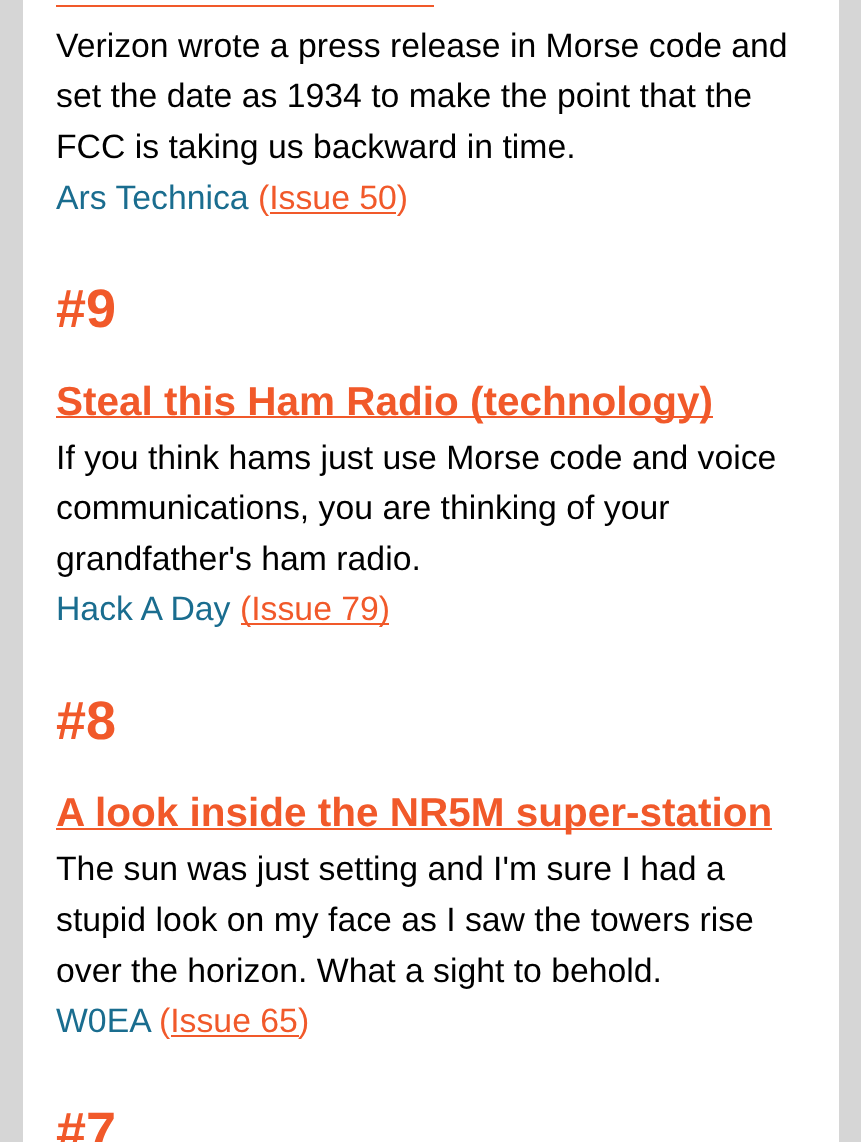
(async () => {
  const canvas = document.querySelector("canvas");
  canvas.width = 861;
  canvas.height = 1142;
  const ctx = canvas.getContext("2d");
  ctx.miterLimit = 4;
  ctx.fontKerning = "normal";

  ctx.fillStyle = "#d6d6d6";
  ctx.fillRect(0, 0, 861, 1142);
  for (const [x, y, w, h, color] of [
    [23, 0, 816, 1142, "#ffffff"],
    [56, 5, 378, 2, "#f1592a"],
    [270, 212, 126, 2, "#f1592a"],
    [56, 416, 657, 2, "#f1592a"],
    [241, 623, 148, 2, "#f1592a"],
    [56, 828, 716, 2, "#f1592a"],
    [171, 1035, 128, 2, "#f1592a"],
  ]) {
    ctx.fillStyle = color;
    ctx.fillRect(x, y, w, h);
  }
  ctx.font = "33.75px Liberation Sans";
  ctx.fillStyle = "#000000";
  for (const [text, x, y] of [
    ["Verizon wrote a press release in Morse code and", 56, 57],
    ["set the date as 1934 to make the point that the", 56, 107],
    ["FCC is taking us backward in time.", 56, 158],
  ]) {
    ctx.fillText(text, x, y);
  }
  ctx.fillStyle = "#1a6d8f";
  ctx.fillText("Ars Technica", 56, 209);
  ctx.fillStyle = "#f1592a";
  ctx.fillText("(Issue 50)", 258, 209);
  ctx.font = "bold 54px Liberation Sans";
  ctx.fillText("#9", 56, 327);
  ctx.font = "bold 40.5px Liberation Sans";
  ctx.fillText("Steal this Ham Radio (technology)", 56, 415);
  ctx.font = "33.75px Liberation Sans";
  ctx.fillStyle = "#000000";
  for (const [text, x, y] of [
    ["If you think hams just use Morse code and voice", 56, 469],
    ["communications, you are thinking of your", 56, 519],
    ["grandfather's ham radio.", 56, 570],
  ]) {
    ctx.fillText(text, x, y);
  }
  ctx.fillStyle = "#1a6d8f";
  ctx.fillText("Hack A Day", 56, 620);
  ctx.fillStyle = "#f1592a";
  ctx.fillText("(Issue 79)", 240, 620);
  ctx.font = "bold 54px Liberation Sans";
  ctx.fillText("#8", 56, 739);
  ctx.font = "bold 40.5px Liberation Sans";
  ctx.fillText("A look inside the NR5M super-station", 56, 826);
  ctx.font = "33.75px Liberation Sans";
  ctx.fillStyle = "#000000";
  for (const [text, x, y] of [
    ["The sun was just setting and I'm sure I had a", 56, 880],
    ["stupid look on my face as I saw the towers rise", 56, 931],
    ["over the horizon. What a sight to behold.", 56, 982],
  ]) {
    ctx.fillText(text, x, y);
  }
  ctx.fillStyle = "#1a6d8f";
  ctx.fillText("W0EA", 56, 1032);
  ctx.fillStyle = "#f1592a";
  ctx.fillText("(Issue 65", 159, 1032);
  ctx.fillText(")", 298, 1032);
  ctx.font = "bold 54px Liberation Sans";
  ctx.fillText("#7", 56, 1150);
})();
